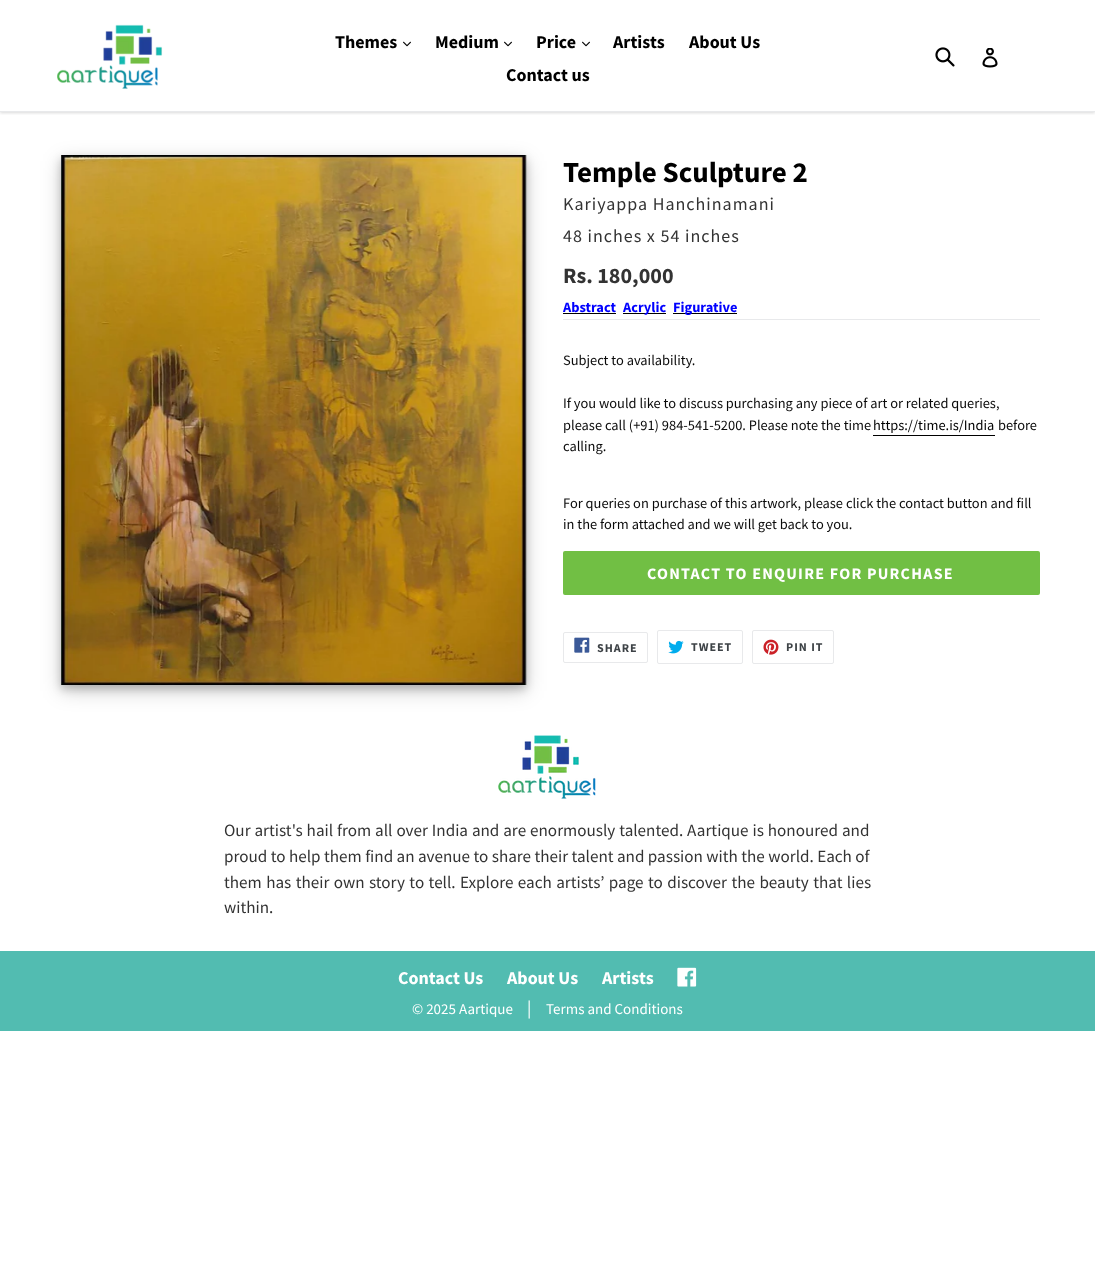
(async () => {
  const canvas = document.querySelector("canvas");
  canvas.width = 1095;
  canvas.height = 1278;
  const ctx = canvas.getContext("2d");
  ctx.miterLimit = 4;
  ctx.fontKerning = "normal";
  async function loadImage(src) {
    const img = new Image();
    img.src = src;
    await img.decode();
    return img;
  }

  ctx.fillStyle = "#ffffff";
  ctx.fillRect(0, 0, 1095, 1278);
  ctx.save();
  ctx.beginPath();
  ctx.rect(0, 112, 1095, 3);
  ctx.clip();
  ctx.fillStyle = "rgba(0, 0, 0, 0.15)";
  ctx.filter = "blur(1.5px)";
  ctx.beginPath();
  ctx.rect(0, 1, 1095, 112);
  ctx.fill();
  ctx.filter = "none";
  ctx.restore();
  ctx.fillStyle = "#e8e9eb";
  ctx.fillRect(0, 111, 1095, 1);
  ctx.drawImage(await loadImage("img/1.png"), 57, 24, 106, 65);
  ctx.drawImage(await loadImage("img/2.png"), 403, 41, 8, 6);
  ctx.drawImage(await loadImage("img/2.png"), 504, 41, 8, 6);
  ctx.drawImage(await loadImage("img/2.png"), 582, 41, 8, 6);
  ctx.drawImage(await loadImage("img/3.png"), 935, 47, 20, 20);
  ctx.drawImage(await loadImage("img/4.png"), 982, 48, 16, 20);
  ctx.fillStyle = "rgba(0, 0, 0, 0.19)";
  ctx.filter = "blur(10px)";
  ctx.beginPath();
  ctx.rect(61, 161, 465, 530);
  ctx.fill();
  ctx.filter = "none";
  ctx.fillStyle = "rgba(0, 0, 0, 0.2)";
  ctx.filter = "blur(4px)";
  ctx.beginPath();
  ctx.rect(61, 159, 465, 530);
  ctx.fill();
  ctx.filter = "none";
  ctx.drawImage(await loadImage("img/5.png"), 61, 155, 466, 530);
  for (const [x, y, w, h, color] of [
    [563, 313, 53, 1, "#000000"],
    [623, 313, 43, 1, "#000000"],
    [673, 313, 64, 1, "#000000"],
    [563, 319, 477, 1, "#e8e9eb"],
    [873, 435, 122, 1, "#000000"],
  ]) {
    ctx.fillStyle = color;
    ctx.fillRect(x, y, w, h);
  }
  ctx.fillStyle = "#71bf44";
  ctx.beginPath();
  ctx.roundRect(563, 551, 477, 44, 2);
  ctx.fill();
  ctx.beginPath();
  ctx.roundRect(563.5, 632.5, 84, 30, 1.5);
  ctx.strokeStyle = "#e8e9eb";
  ctx.stroke();
  ctx.drawImage(await loadImage("img/6.png"), 574, 637, 16, 16);
  ctx.beginPath();
  ctx.roundRect(657.5, 630.5, 85, 33, 1.5);
  ctx.stroke();
  ctx.drawImage(await loadImage("img/7.png"), 668, 640, 16, 14);
  ctx.beginPath();
  ctx.roundRect(752.5, 630.5, 81, 33, 1.5);
  ctx.stroke();
  ctx.drawImage(await loadImage("img/8.png"), 763, 639, 16, 16);
  ctx.drawImage(await loadImage("img/9.png"), 498, 735, 98, 64);
  ctx.fillStyle = "#52bcb1";
  ctx.fillRect(0, 951, 1095, 80);
  ctx.drawImage(await loadImage("img/10.png"), 677, 967, 20, 20);
  ctx.font = "bold 18px Source Sans Pro";
  ctx.fillStyle = "#000000";
  for (const [text, x, y] of [
    ["Themes", 335, 48],
    ["Medium", 435, 48],
    ["Price", 536, 48],
    ["Artists", 613, 48],
    ["About Us", 689, 48],
    ["Contact us", 506, 81],
  ]) {
    ctx.fillText(text, x, y);
  }
  ctx.font = "bold 29px Source Sans Pro";
  ctx.fillText("Temple Sculpture 2", 563, 182);
  ctx.letterSpacing = "1px";
  ctx.font = "18px Source Sans Pro";
  ctx.fillStyle = "#333333";
  ctx.fillText("Kariyappa Hanchinamani", 563, 210);
  ctx.fillText("48 inches x 54 inches", 563, 242);
  ctx.letterSpacing = "0px";
  ctx.font = "bold 22px Source Sans Pro";
  ctx.fillText("Rs. 180,000", 563, 283);
  ctx.font = "bold 14.4px Source Sans Pro";
  ctx.fillStyle = "#0000ff";
  for (const [text, x, y] of [
    ["Abstract", 563, 312],
    ["Acrylic", 623, 312],
    ["Figurative", 673, 312],
  ]) {
    ctx.fillText(text, x, y);
  }
  ctx.font = "14.4px Source Sans Pro";
  ctx.fillStyle = "#0a0a0a";
  for (const [text, x, y] of [
    ["Subject to availability.", 563, 365],
    ["If you would like to discuss purchasing any piece of art or related queries,", 563, 408],
    ["please call (+91) 984-541-5200. Please note the time", 563, 430],
  ]) {
    ctx.fillText(text, x, y);
  }
  ctx.fillStyle = "#000000";
  ctx.fillText("https://time.is/India", 873, 430);
  ctx.fillStyle = "#0a0a0a";
  for (const [text, x, y] of [
    ["before", 998, 430],
    ["calling.", 563, 451],
    ["For queries on purchase of this artwork, please click the contact button and fill", 563, 508],
    ["in the form attached and we will get back to you.", 563, 529],
  ]) {
    ctx.fillText(text, x, y);
  }
  ctx.letterSpacing = "1.25px";
  ctx.font = "bold 16px Source Sans Pro";
  ctx.fillStyle = "#ffffff";
  ctx.fillText("CONTACT TO ENQUIRE FOR PURCHASE", 647, 579);
  ctx.letterSpacing = "1px";
  ctx.font = "bold 12px Source Sans Pro";
  ctx.fillStyle = "#3d4246";
  for (const [text, x, y] of [
    ["SHARE", 597, 652],
    ["TWEET", 691, 651],
    ["PIN IT", 786, 651],
  ]) {
    ctx.fillText(text, x, y);
  }
  ctx.letterSpacing = "0px";
  ctx.wordSpacing = "0.5px";
  ctx.font = "17.1px Source Sans Pro";
  ctx.fillStyle = "#333333";
  ctx.fillText("Our artist's hail from all over India and are enormously talented. Aartique is honoured and", 224, 836);
  ctx.wordSpacing = "0px";
  ctx.fillText("proud to help them find an avenue to share their talent and passion with the world. Each of", 224, 862);
  ctx.wordSpacing = "1px";
  ctx.fillText("them has their own story to tell.", 224, 888);
  ctx.fillText("Explore each artists’ page to discover the beauty that lies", 460, 888);
  ctx.wordSpacing = "0px";
  ctx.fillText("within.", 224, 913);
  ctx.font = "bold 18px Source Sans Pro";
  ctx.fillStyle = "#ffffff";
  for (const [text, x, y] of [
    ["Contact Us", 398, 984],
    ["About Us", 507, 984],
    ["Artists", 602, 984],
  ]) {
    ctx.fillText(text, x, y);
  }
  ctx.font = "15px Source Sans Pro";
  ctx.fillText("© 2025 Aartique", 412, 1014);
  ctx.font = "18px Source Sans Pro";
  ctx.fillText("|", 527, 1014);
  ctx.font = "15px Source Sans Pro";
  ctx.fillText("Terms and Conditions", 546, 1014);
})();
